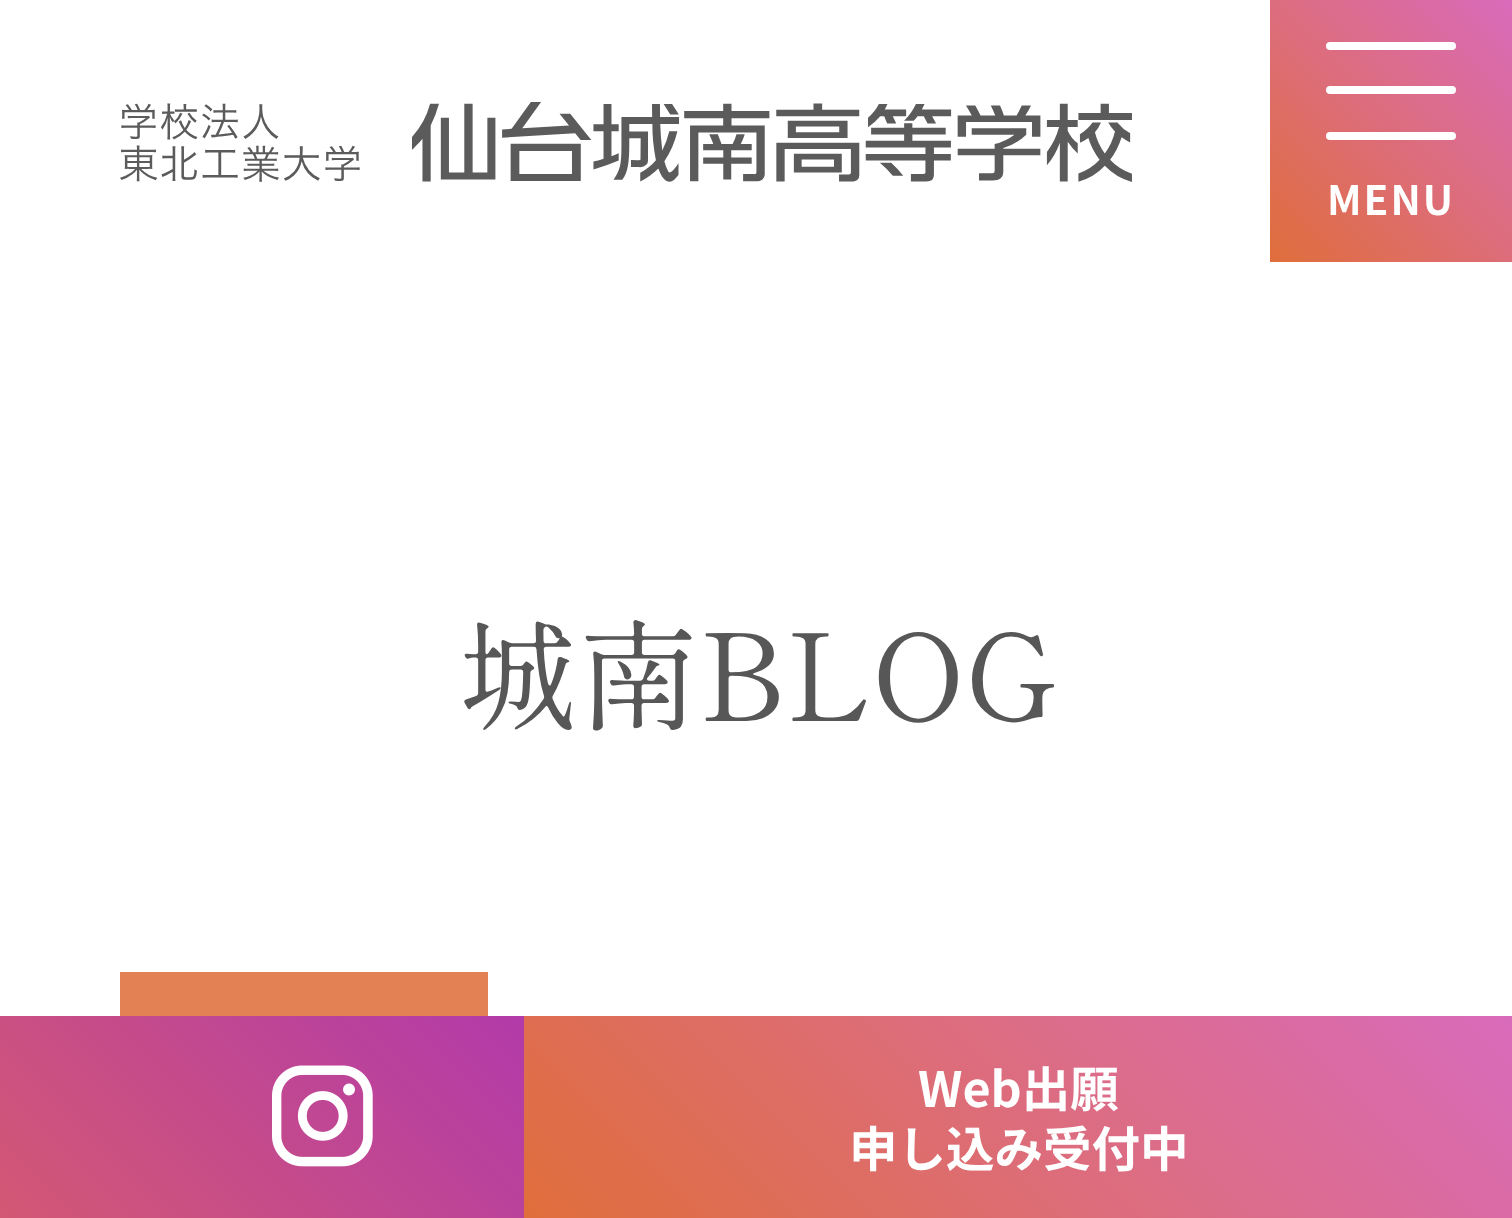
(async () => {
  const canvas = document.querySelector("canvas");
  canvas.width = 1512;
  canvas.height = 1218;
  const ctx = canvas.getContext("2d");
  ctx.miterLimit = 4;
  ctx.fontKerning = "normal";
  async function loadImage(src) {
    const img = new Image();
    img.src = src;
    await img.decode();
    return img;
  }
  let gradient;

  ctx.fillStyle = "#ffffff";
  ctx.fillRect(0, 0, 1512, 1218);
  ctx.drawImage(await loadImage("img/1.png"), 120, 102, 1012, 80);
  gradient = ctx.createLinearGradient(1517, 5, 1265, 257);
  gradient.addColorStop(0, "#d96bbc");
  gradient.addColorStop(1, "#e06e3b");
  ctx.fillStyle = gradient;
  ctx.fillRect(1270, 0, 242, 262);
  ctx.fillStyle = "#ffffff";
  ctx.beginPath();
  ctx.roundRect(1326, 42, 130, 8, 4);
  ctx.fill();
  ctx.beginPath();
  ctx.roundRect(1326, 86, 130, 8, 4);
  ctx.fill();
  ctx.beginPath();
  ctx.roundRect(1326, 132, 130, 8, 4);
  ctx.fill();
  ctx.fillStyle = "#e38054";
  ctx.fillRect(120, 972, 368, 44);
  gradient = ctx.createLinearGradient(444, 936, 81, 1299);
  gradient.addColorStop(0, "#b23aa9");
  gradient.addColorStop(1, "#d35874");
  ctx.fillStyle = gradient;
  ctx.fillRect(0, 1016, 524, 202);
  ctx.drawImage(await loadImage("img/2.png"), 272, 1065, 101, 102);
  gradient = ctx.createLinearGradient(1316, 820, 721, 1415);
  gradient.addColorStop(0, "#d96bbc");
  gradient.addColorStop(1, "#e06e3b");
  ctx.fillStyle = gradient;
  ctx.fillRect(524, 1016, 988, 202);
  ctx.letterSpacing = "2px";
  ctx.font = "bold 40.5px Noto Sans JP";
  ctx.fillStyle = "#ffffff";
  ctx.fillText("MENU", 1327, 215);
  ctx.letterSpacing = "0px";
  ctx.font = "121px 'Shippori Mincho B1'";
  ctx.fillStyle = "#575757";
  ctx.fillText("城南BLOG", 457, 721);
  ctx.font = "bold 48.5px Noto Sans JP";
  ctx.fillStyle = "#ffffff";
  ctx.fillText("Web出願", 918, 1107);
  ctx.fillText("申し込み受付中", 849, 1167);
})();
